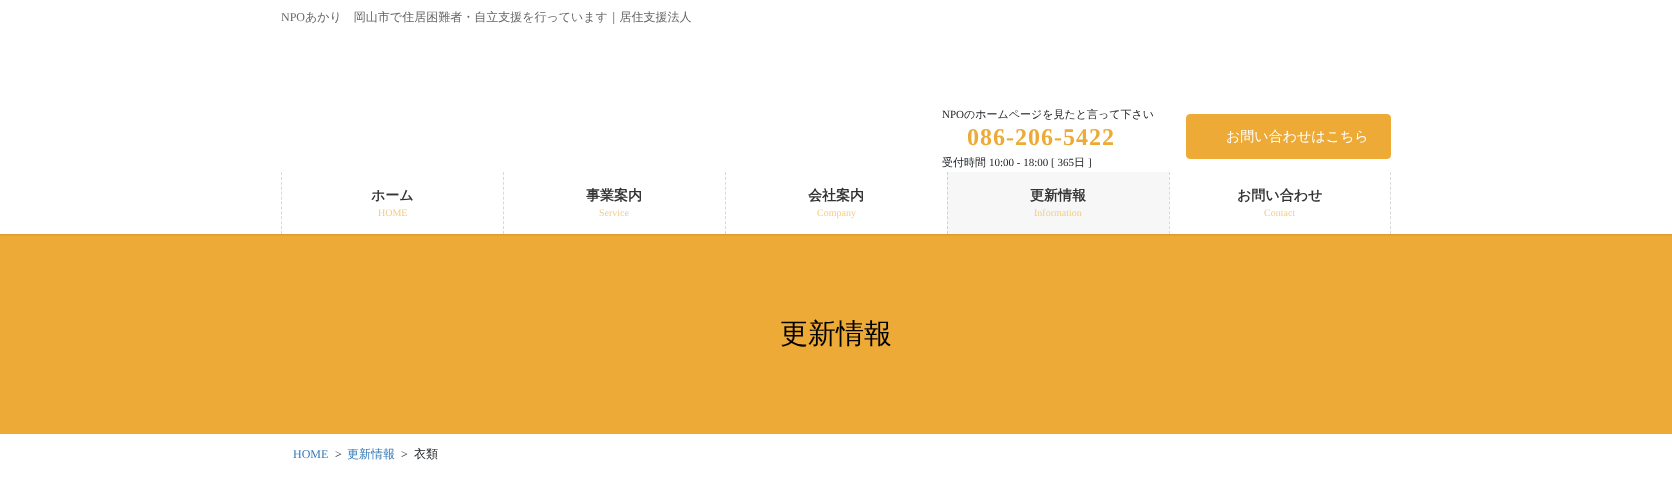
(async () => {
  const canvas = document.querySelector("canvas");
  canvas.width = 1672;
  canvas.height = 483;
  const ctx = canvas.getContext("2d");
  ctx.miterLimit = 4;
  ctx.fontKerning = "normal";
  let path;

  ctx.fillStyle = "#ffffff";
  ctx.fillRect(0, 0, 1672, 483);
  ctx.fillStyle = "#edaa36";
  ctx.fillRect(0, 234, 1672, 200);
  ctx.save();
  ctx.beginPath();
  ctx.rect(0, 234, 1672, 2);
  ctx.clip();
  ctx.fillStyle = "rgba(0, 0, 0, 0.1)";
  ctx.filter = "blur(1.5px)";
  ctx.beginPath();
  ctx.rect(0, -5, 1672, 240);
  ctx.fill();
  ctx.filter = "none";
  ctx.restore();
  ctx.beginPath();
  ctx.roundRect(1186.5, 114.5, 204, 44, 3.5);
  ctx.fill();
  ctx.strokeStyle = "#edaa36";
  ctx.stroke();
  path = new Path2D("M281.5 172V234");
  ctx.strokeStyle = "#d9d9d9";
  ctx.setLineDash([3, 1.92]);
  ctx.stroke(path);
  path = new Path2D("M503.5 172V234");
  ctx.stroke(path);
  path = new Path2D("M725.5 172V234");
  ctx.stroke(path);
  ctx.fillStyle = "#f7f7f7";
  ctx.fillRect(947, 172, 222, 62);
  path = new Path2D("M947.5 172V234");
  ctx.strokeStyle = "#d2d2d2";
  ctx.stroke(path);
  path = new Path2D("M1390.5 172V234");
  ctx.strokeStyle = "#d9d9d9";
  ctx.stroke(path);
  path = new Path2D("M1169.5 172V234");
  ctx.stroke(path);
  ctx.font = "12px Liberation Serif";
  ctx.fillStyle = "#666666";
  ctx.fillText("NPO", 281, 21);
  ctx.font = "500 12px WenQuanYi Zen Hei";
  ctx.fillText("あかり　岡山市で住居困難者・自立支援を行っています｜居住支援法人", 305, 21);
  ctx.font = "11px Liberation Serif";
  ctx.fillStyle = "#212529";
  ctx.fillText("NPO", 942, 118);
  ctx.font = "500 11px WenQuanYi Zen Hei";
  ctx.fillText("のホームページを見たと言って下さい", 964, 118);
  ctx.letterSpacing = "1px";
  ctx.font = "bold 24px Liberation Serif";
  ctx.fillStyle = "#edaa36";
  ctx.fillText("086-206-5422", 967, 145);
  ctx.letterSpacing = "0px";
  ctx.font = "500 11px WenQuanYi Zen Hei";
  ctx.fillStyle = "#212529";
  ctx.fillText("受付時間", 942, 166);
  ctx.font = "11px Liberation Serif";
  ctx.fillText("10:00 - 18:00 [ 365", 989, 166);
  ctx.font = "500 11px WenQuanYi Zen Hei";
  ctx.fillText("日", 1074, 166);
  ctx.font = "11px Liberation Serif";
  ctx.fillText("]", 1088, 166);
  ctx.font = "500 14px WenQuanYi Zen Hei";
  ctx.fillStyle = "#ffffff";
  ctx.fillText("お問い合わせはこちら", 1226, 141);
  ctx.font = "bold 14px WenQuanYi Zen Hei";
  ctx.fillStyle = "#333333";
  ctx.fillText("ホーム", 371, 200);
  ctx.font = "10px Liberation Serif";
  ctx.fillStyle = "#f4cc86";
  ctx.fillText("HOME", 378, 216);
  ctx.font = "bold 14px WenQuanYi Zen Hei";
  ctx.fillStyle = "#333333";
  ctx.fillText("事業案内", 586, 200);
  ctx.font = "10px Liberation Serif";
  ctx.fillStyle = "#f4cc86";
  ctx.fillText("Service", 599, 216);
  ctx.font = "bold 14px WenQuanYi Zen Hei";
  ctx.fillStyle = "#333333";
  ctx.fillText("会社案内", 808, 200);
  ctx.font = "10px Liberation Serif";
  ctx.fillStyle = "#f4cc86";
  ctx.fillText("Company", 817, 216);
  ctx.font = "bold 14px WenQuanYi Zen Hei";
  ctx.fillStyle = "#333333";
  ctx.fillText("更新情報", 1030, 200);
  ctx.font = "10px Liberation Serif";
  ctx.fillStyle = "#f4cc86";
  ctx.fillText("Information", 1034, 216);
  ctx.font = "bold 14px WenQuanYi Zen Hei";
  ctx.fillStyle = "#333333";
  ctx.fillText("お問い合わせ", 1237, 200);
  ctx.font = "10px Liberation Serif";
  ctx.fillStyle = "#f4cc86";
  ctx.fillText("Contact", 1264, 216);
  ctx.font = "500 28px WenQuanYi Zen Hei";
  ctx.fillStyle = "#000000";
  ctx.fillText("更新情報", 780, 343);
  ctx.font = "12px Liberation Serif";
  ctx.fillStyle = "#337ab7";
  ctx.fillText("HOME", 293, 458);
  ctx.fillStyle = "#212529";
  ctx.fillText(">", 335, 458);
  ctx.font = "500 12px WenQuanYi Zen Hei";
  ctx.fillStyle = "#337ab7";
  ctx.fillText("更新情報", 347, 458);
  ctx.font = "12px Liberation Serif";
  ctx.fillStyle = "#212529";
  ctx.fillText(">", 401, 458);
  ctx.font = "500 12px WenQuanYi Zen Hei";
  ctx.fillText("衣類", 414, 458);
})();
